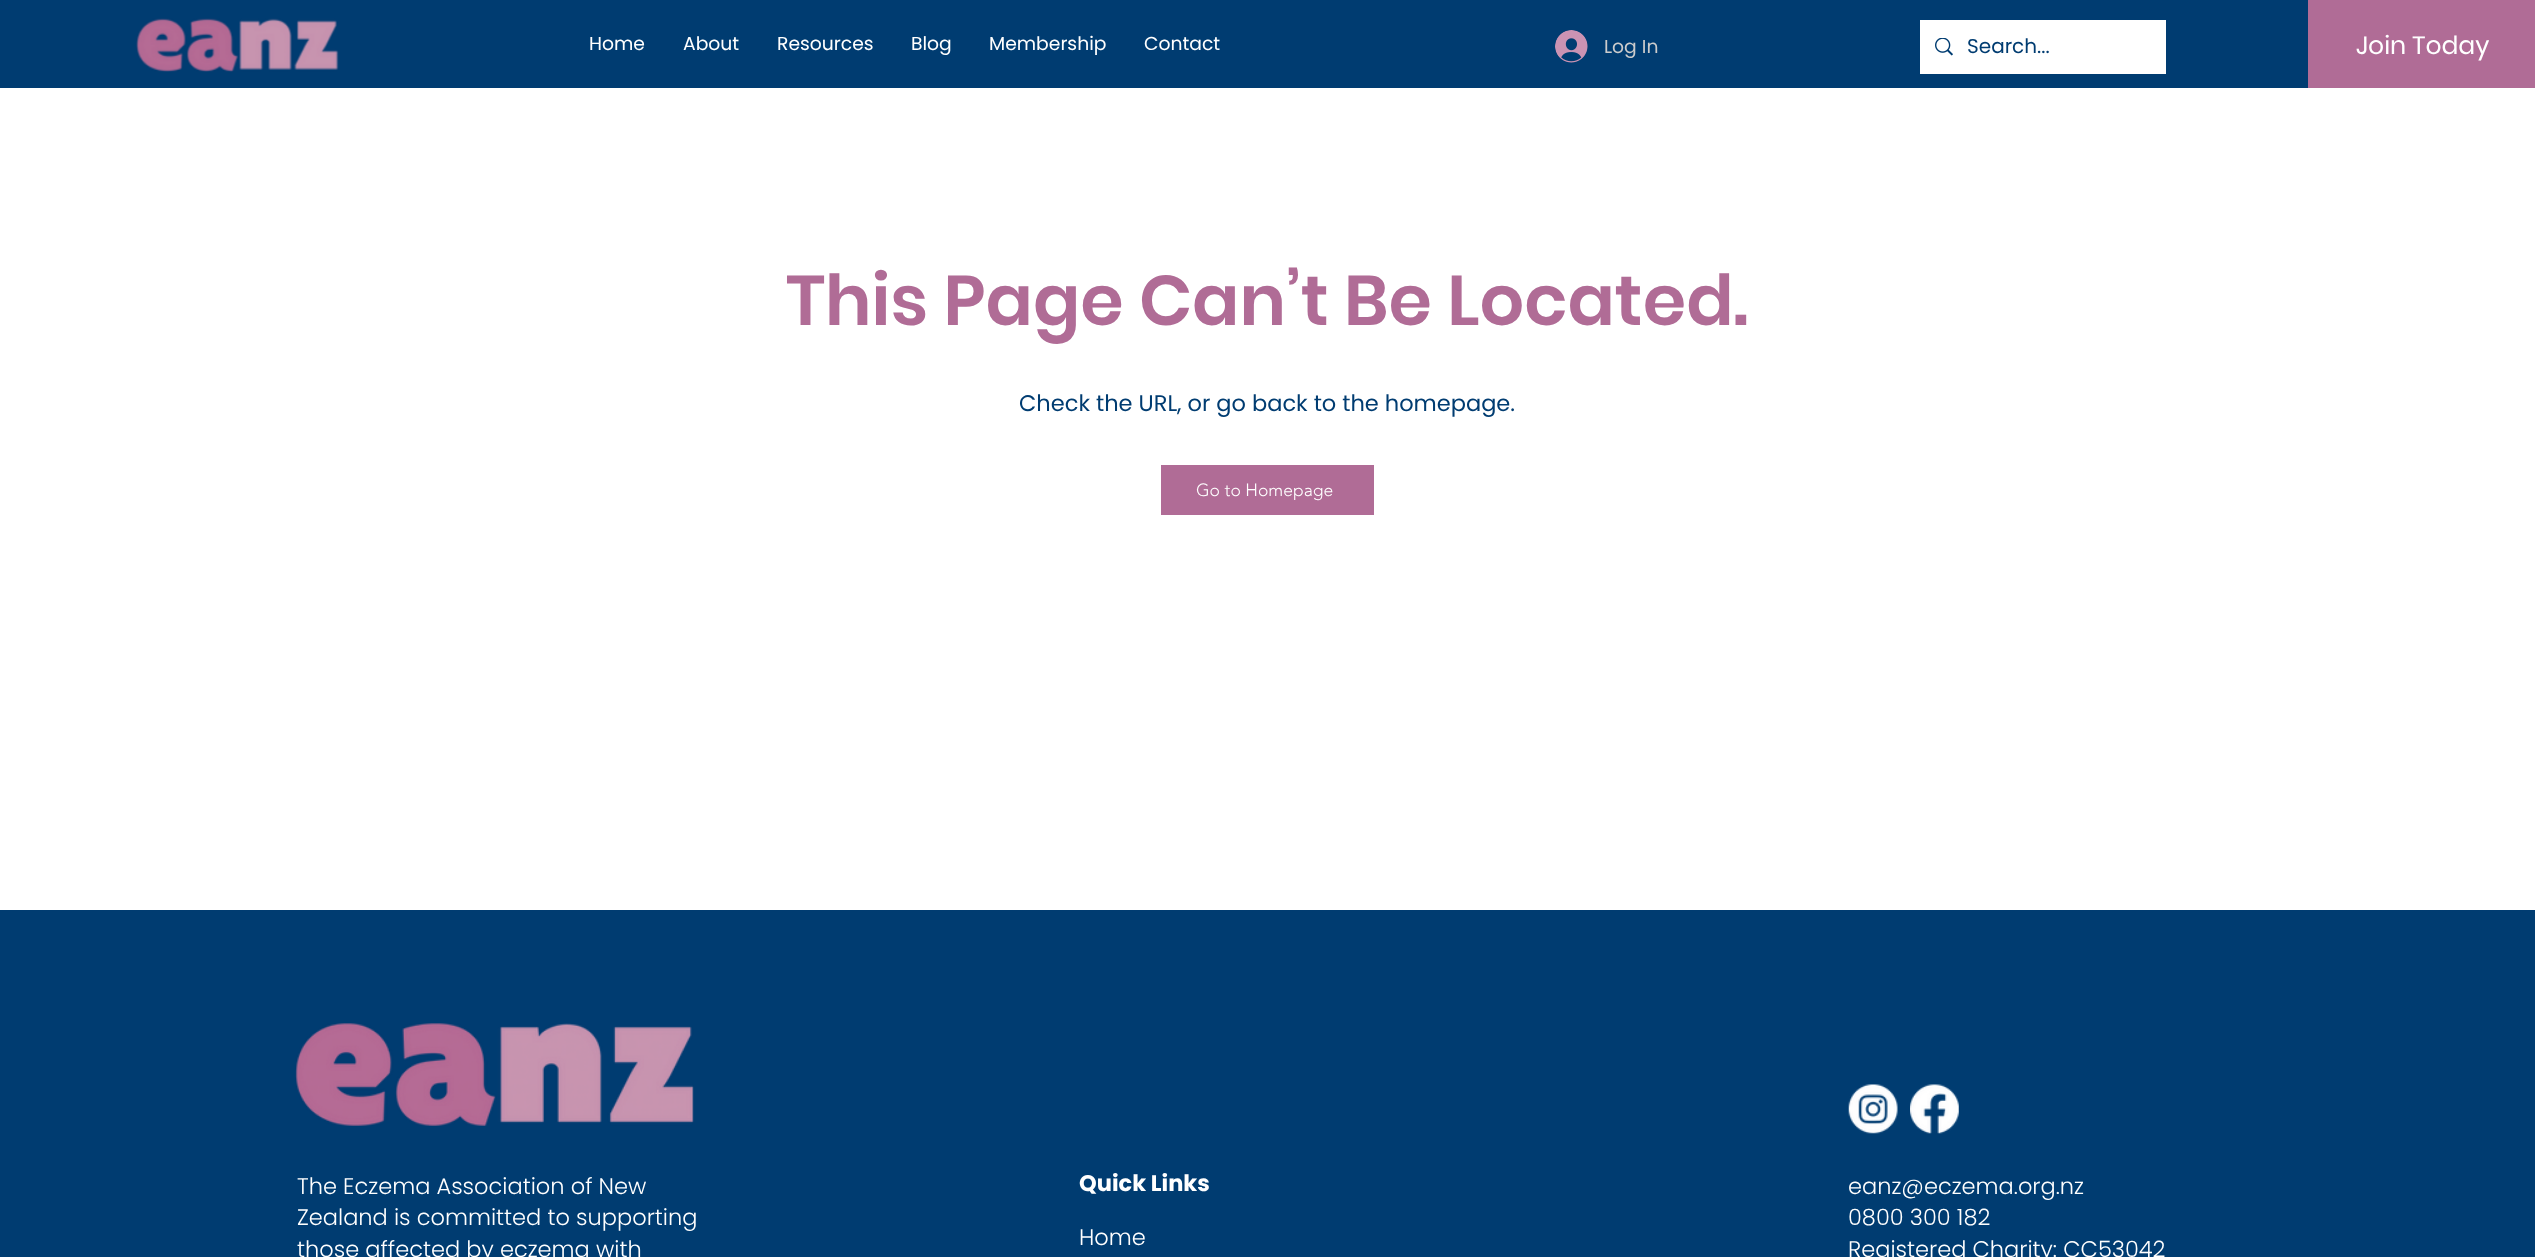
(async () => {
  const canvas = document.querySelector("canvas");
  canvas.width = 2535;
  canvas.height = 1257;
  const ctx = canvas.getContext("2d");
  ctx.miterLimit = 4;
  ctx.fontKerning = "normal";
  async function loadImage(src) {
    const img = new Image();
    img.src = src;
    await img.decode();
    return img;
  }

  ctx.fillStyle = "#ffffff";
  ctx.fillRect(0, 0, 2535, 1257);
  ctx.fillStyle = "#003c71";
  ctx.fillRect(0, 0, 2308, 88);
  ctx.drawImage(await loadImage("img/1.png"), 136, 18, 203, 54);
  ctx.fillStyle = "#b06c96";
  ctx.fillRect(2308, 0, 227, 88);
  ctx.drawImage(await loadImage("img/2.png"), 1555, 30, 33, 33);
  ctx.fillStyle = "#ffffff";
  ctx.fillRect(1920, 20, 246, 54);
  ctx.drawImage(await loadImage("img/3.png"), 1935, 38, 18, 18);
  ctx.fillStyle = "#b06c96";
  ctx.fillRect(1161, 465, 213, 50);
  ctx.fillStyle = "#003c71";
  ctx.fillRect(0, 910, 2535, 347);
  ctx.drawImage(await loadImage("img/4.png"), 295, 1023, 399, 103);
  ctx.drawImage(await loadImage("img/5.png"), 1848, 1084, 50, 50);
  ctx.drawImage(await loadImage("img/6.png"), 1910, 1084, 49, 50);
  ctx.font = "25px 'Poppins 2'";
  ctx.fillStyle = "#ffffff";
  ctx.fillText("Join Today", 2356, 54);
  ctx.font = "18.75px Poppins";
  for (const [text, x, y] of [
    ["Home", 589, 50],
    ["About", 683, 50],
    ["Resources", 777, 50],
    ["Blog", 911, 50],
    ["Membership", 989, 50],
    ["Contact", 1144, 50],
  ]) {
    ctx.fillText(text, x, y);
  }
  ctx.fillStyle = "#cccccc";
  ctx.fillText("Log In", 1604, 53);
  ctx.font = "20px Poppins";
  ctx.fillStyle = "#003c71";
  ctx.fillText("Search...", 1967, 53);
  ctx.font = "600 70px Poppins";
  ctx.fillStyle = "#b06c96";
  ctx.fillText("This Page Can’t Be Located.", 786, 325);
  ctx.font = "22.5px Poppins";
  ctx.fillStyle = "#003c71";
  ctx.fillText("Check the URL, or go back to the homepage.", 1019, 411);
  ctx.font = "300 17.5px 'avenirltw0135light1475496'";
  ctx.fillStyle = "#ffffff";
  ctx.fillText("Go to Homepage", 1196, 496);
  ctx.font = "300 22.5px Poppins";
  for (const [text, x, y] of [
    ["The Eczema Association of New", 297, 1194],
    ["Zealand is committed to supporting", 297, 1225],
    ["those affected by eczema with", 297, 1257],
  ]) {
    ctx.fillText(text, x, y);
  }
  ctx.font = "bold 22.5px Poppins";
  ctx.fillText("Quick Links", 1079, 1191);
  ctx.font = "300 22.5px Poppins";
  for (const [text, x, y] of [
    ["Home", 1079, 1245],
    ["eanz@eczema.org.nz", 1848, 1194],
    ["0800 300 182", 1848, 1225],
    ["Registered Charity: CC53042", 1848, 1257],
  ]) {
    ctx.fillText(text, x, y);
  }
})();
